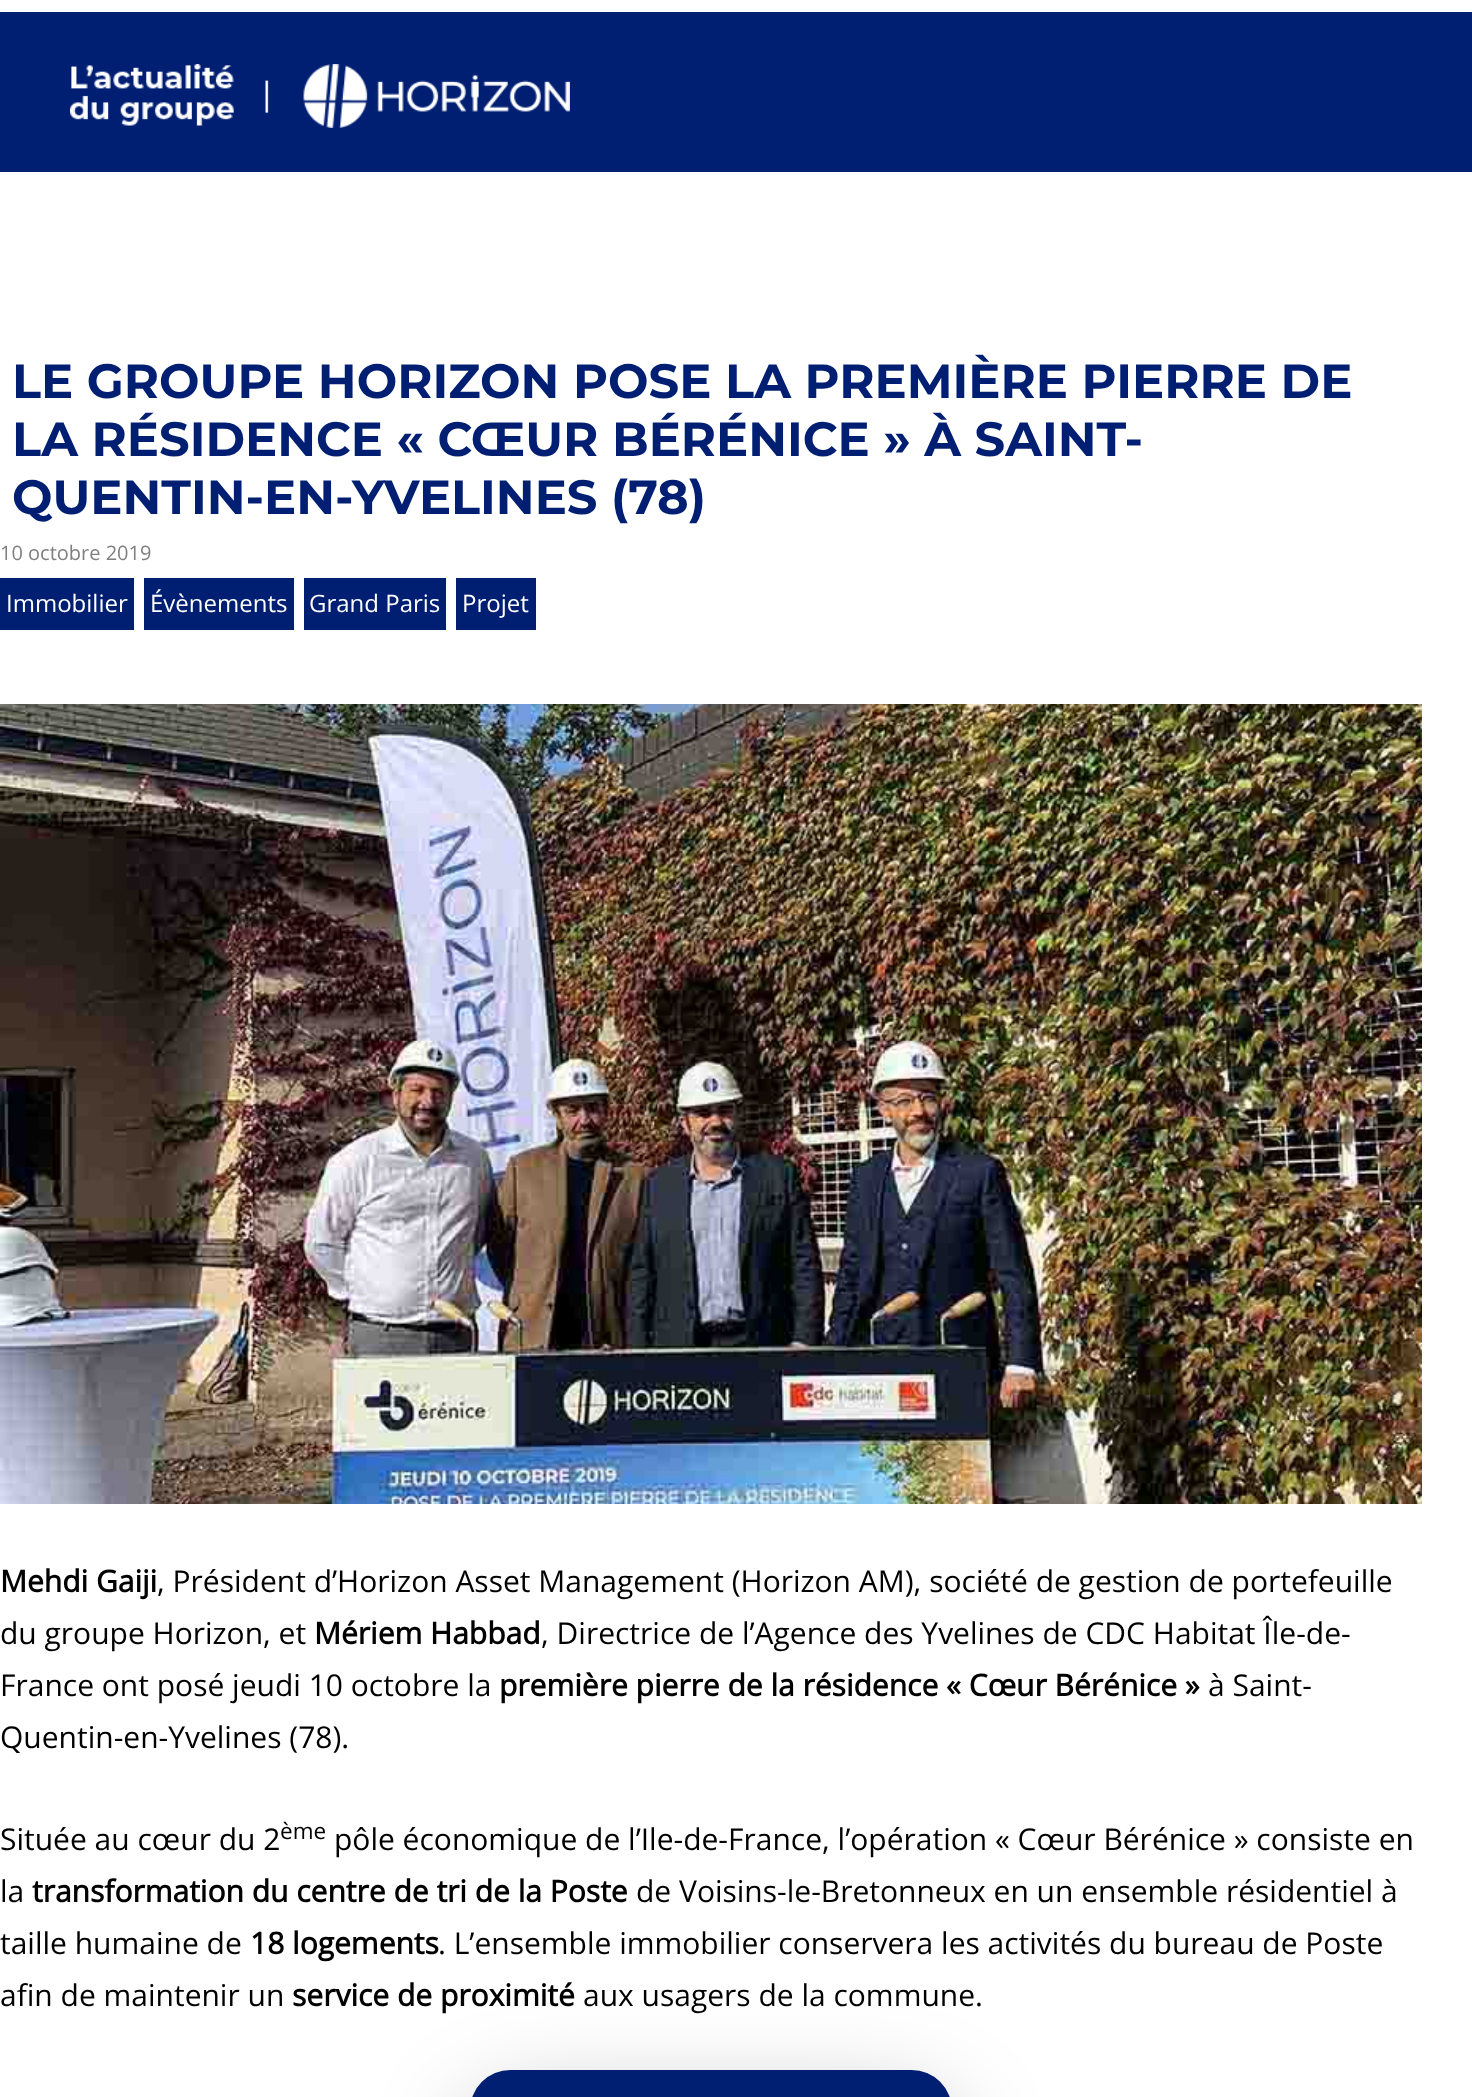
(async () => {
  const canvas = document.querySelector("canvas");
  canvas.width = 1472;
  canvas.height = 2097;
  const ctx = canvas.getContext("2d");
  ctx.miterLimit = 4;
  ctx.fontKerning = "normal";
  async function loadImage(src) {
    const img = new Image();
    img.src = src;
    await img.decode();
    return img;
  }

  ctx.fillStyle = "#ffffff";
  ctx.fillRect(0, 0, 1472, 2097);
  ctx.fillStyle = "#001f72";
  ctx.fillRect(0, 12, 1472, 160);
  ctx.drawImage(await loadImage("img/1.png"), 70, 64, 500, 64);
  for (const [x, y, w, h, color] of [
    [0, 578, 134, 52, "#001f72"],
    [144, 578, 150, 52, "#001f72"],
    [304, 578, 142, 52, "#001f72"],
    [456, 578, 80, 52, "#001f72"],
  ]) {
    ctx.fillStyle = color;
    ctx.fillRect(x, y, w, h);
  }
  ctx.drawImage(await loadImage("img/2.png"), 0, 704, 1422, 800);
  ctx.fillStyle = "rgba(0, 0, 0, 0.3)";
  ctx.filter = "blur(50px)";
  ctx.beginPath();
  ctx.roundRect(470, 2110, 482, 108, 54);
  ctx.fill();
  ctx.filter = "none";
  ctx.fillStyle = "#001f72";
  ctx.beginPath();
  ctx.roundRect(470, 2070, 482, 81, 54);
  ctx.fill();
  ctx.font = "bold 48px Montserrat";
  for (const [text, x, y] of [
    ["LE GROUPE HORIZON POSE LA PREMIÈRE PIERRE DE", 12, 398],
    ["LA RÉSIDENCE « CŒUR BÉRÉNICE » À SAINT-", 12, 456],
    ["QUENTIN-EN-YVELINES (78)", 12, 514],
  ]) {
    ctx.fillText(text, x, y);
  }
  ctx.font = "20px Open Sans";
  ctx.fillStyle = "#808080";
  ctx.fillText("10 octobre 2019", 0, 560);
  ctx.font = "24px Open Sans";
  ctx.fillStyle = "#ffffff";
  for (const [text, x, y] of [
    ["Immobilier", 6, 612],
    ["Évènements", 150, 612],
    ["Grand Paris", 309, 612],
    ["Projet", 462, 612],
  ]) {
    ctx.fillText(text, x, y);
  }
  ctx.font = "bold 30px Open Sans";
  ctx.fillStyle = "#000000";
  ctx.fillText("Mehdi Gaiji", 0, 1592);
  ctx.font = "30px Open Sans";
  ctx.fillText(", Président d’Horizon Asset Management (Horizon AM), société de gestion de portefeuille", 157, 1592);
  ctx.fillText("du groupe Horizon, et", 0, 1644);
  ctx.font = "bold 30px Open Sans";
  ctx.fillText("Mériem Habbad", 314, 1644);
  ctx.font = "30px Open Sans";
  ctx.fillText(", Directrice de l’Agence des Yvelines de CDC Habitat Île-de-", 541, 1644);
  ctx.fillText("France ont posé jeudi 10 octobre la", 0, 1696);
  ctx.font = "bold 30px Open Sans";
  ctx.fillText("première pierre de la résidence « Cœur Bérénice »", 499, 1696);
  ctx.font = "30px Open Sans";
  for (const [text, x, y] of [
    ["à Saint-", 1208, 1696],
    ["Quentin-en-Yvelines (78).", 0, 1748],
    ["Située au cœur du 2", 0, 1850],
  ]) {
    ctx.fillText(text, x, y);
  }
  ctx.font = "22.5px Open Sans";
  ctx.fillText("ème", 280, 1839);
  ctx.font = "30px Open Sans";
  ctx.fillText("pôle économique de l’Ile-de-France, l’opération « Cœur Bérénice » consiste en", 334, 1850);
  ctx.fillText("la", 0, 1902);
  ctx.font = "bold 30px Open Sans";
  ctx.fillText("transformation du centre de tri de la Poste", 32, 1902);
  ctx.font = "30px Open Sans";
  ctx.fillText("de Voisins-le-Bretonneux en un ensemble résidentiel à", 636, 1902);
  ctx.fillText("taille humaine de", 0, 1954);
  ctx.font = "bold 30px Open Sans";
  ctx.fillText("18 logements", 250, 1954);
  ctx.font = "30px Open Sans";
  ctx.fillText(". L’ensemble immobilier conservera les activités du bureau de Poste", 438, 1954);
  ctx.fillText("afin de maintenir un", 0, 2006);
  ctx.font = "bold 30px Open Sans";
  ctx.fillText("service de proximité", 292, 2006);
  ctx.font = "30px Open Sans";
  ctx.fillText("aux usagers de la commune.", 583, 2006);
})();
